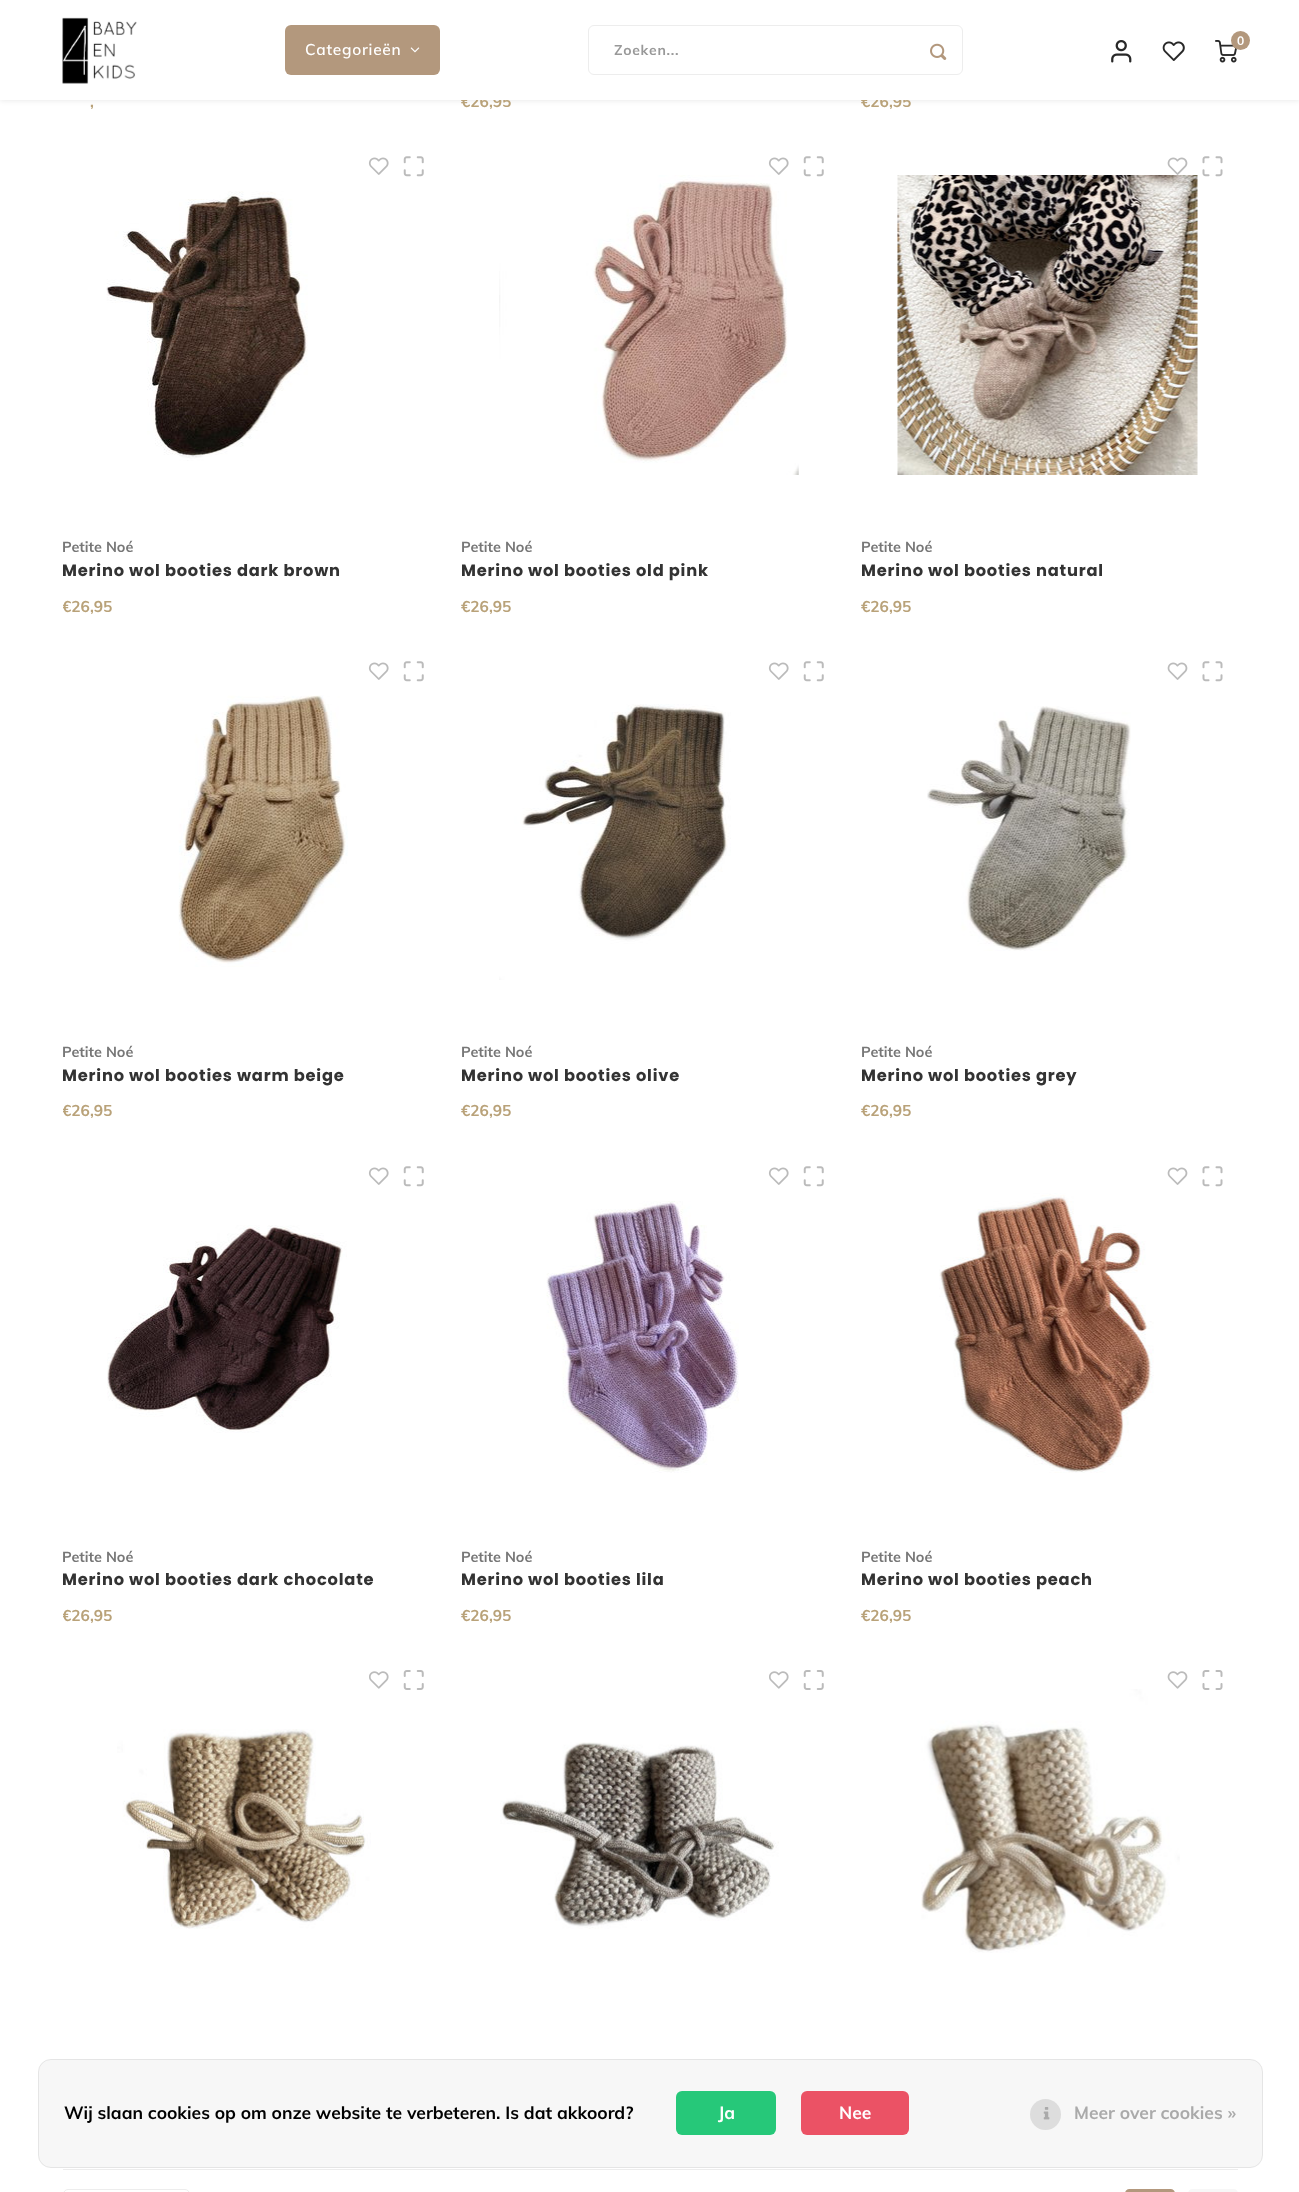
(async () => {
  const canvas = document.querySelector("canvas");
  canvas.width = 1299;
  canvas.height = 2192;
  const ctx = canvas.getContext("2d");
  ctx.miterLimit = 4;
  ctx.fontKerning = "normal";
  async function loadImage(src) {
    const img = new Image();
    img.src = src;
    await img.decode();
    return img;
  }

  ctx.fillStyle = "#ffffff";
  ctx.fillRect(0, 0, 1299, 2192);
  ctx.fillStyle = "rgba(0, 0, 0, 0.08)";
  ctx.filter = "blur(2.5px)";
  ctx.beginPath();
  ctx.rect(0, 1, 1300, 100);
  ctx.fill();
  ctx.filter = "none";
  ctx.drawImage(await loadImage("img/7.png"), 368, 157, 21, 18);
  ctx.drawImage(await loadImage("img/8.png"), 403, 156, 21, 21);
  ctx.drawImage(await loadImage("img/9.png"), 106, 191, 202, 270);
  ctx.drawImage(await loadImage("img/7.png"), 768, 157, 21, 18);
  ctx.drawImage(await loadImage("img/8.png"), 803, 156, 21, 21);
  ctx.drawImage(await loadImage("img/10.png"), 499, 175, 300, 300);
  ctx.drawImage(await loadImage("img/11.png"), 1167, 157, 21, 18);
  ctx.drawImage(await loadImage("img/12.png"), 1202, 156, 21, 21);
  ctx.drawImage(await loadImage("img/13.png"), 897, 175, 301, 300);
  ctx.drawImage(await loadImage("img/7.png"), 368, 662, 21, 18);
  ctx.drawImage(await loadImage("img/8.png"), 403, 661, 21, 21);
  ctx.drawImage(await loadImage("img/14.png"), 178, 695, 170, 272);
  ctx.drawImage(await loadImage("img/7.png"), 768, 662, 21, 18);
  ctx.drawImage(await loadImage("img/8.png"), 803, 661, 21, 21);
  ctx.drawImage(await loadImage("img/15.png"), 499, 704, 232, 276);
  ctx.drawImage(await loadImage("img/11.png"), 1167, 662, 21, 18);
  ctx.drawImage(await loadImage("img/12.png"), 1202, 661, 21, 21);
  ctx.drawImage(await loadImage("img/16.png"), 927, 706, 204, 245);
  ctx.drawImage(await loadImage("img/7.png"), 368, 1167, 21, 18);
  ctx.drawImage(await loadImage("img/8.png"), 403, 1166, 21, 21);
  ctx.drawImage(await loadImage("img/17.png"), 107, 1225, 240, 208);
  ctx.drawImage(await loadImage("img/7.png"), 768, 1167, 21, 18);
  ctx.drawImage(await loadImage("img/8.png"), 803, 1166, 21, 21);
  ctx.drawImage(await loadImage("img/18.png"), 546, 1201, 193, 272);
  ctx.drawImage(await loadImage("img/11.png"), 1167, 1167, 21, 18);
  ctx.drawImage(await loadImage("img/12.png"), 1202, 1166, 21, 21);
  ctx.drawImage(await loadImage("img/19.png"), 939, 1193, 215, 280);
  ctx.drawImage(await loadImage("img/20.png"), 369, 1671, 20, 18);
  ctx.drawImage(await loadImage("img/21.png"), 403, 1670, 21, 20);
  ctx.drawImage(await loadImage("img/22.png"), 117, 1729, 254, 200);
  ctx.drawImage(await loadImage("img/20.png"), 769, 1671, 20, 18);
  ctx.drawImage(await loadImage("img/21.png"), 803, 1670, 21, 20);
  ctx.drawImage(await loadImage("img/23.png"), 500, 1742, 279, 187);
  ctx.drawImage(await loadImage("img/24.png"), 1167, 1671, 21, 18);
  ctx.drawImage(await loadImage("img/25.png"), 1202, 1670, 21, 20);
  ctx.drawImage(await loadImage("img/26.png"), 921, 1689, 259, 264);
  ctx.fillStyle = "#ededed";
  ctx.fillRect(63, 2169, 1175, 1);
  ctx.beginPath();
  ctx.roundRect(63.5, 2189.5, 126, 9, 5.5);
  ctx.strokeStyle = "#ededed";
  ctx.stroke();
  ctx.fillStyle = "#b3987d";
  ctx.beginPath();
  ctx.roundRect(1125, 2189, 50, 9, 6);
  ctx.fill();
  ctx.fillStyle = "#f7f7f7";
  ctx.beginPath();
  ctx.roundRect(1188, 2189, 50, 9, 6);
  ctx.fill();
  ctx.beginPath();
  ctx.roundRect(38, 2059, 1225, 109, 13);
  ctx.fill();
  ctx.beginPath();
  ctx.roundRect(38.5, 2059.5, 1224, 108, 12.5);
  ctx.strokeStyle = "rgba(0, 0, 0, 0.07)";
  ctx.stroke();
  ctx.fillStyle = "#26c879";
  ctx.beginPath();
  ctx.roundRect(676, 2091, 100, 44, 6);
  ctx.fill();
  ctx.fillStyle = "#eb5265";
  ctx.beginPath();
  ctx.roundRect(801, 2091, 108, 44, 6);
  ctx.fill();
  ctx.fillStyle = "#dddddd";
  ctx.beginPath();
  ctx.arc(1045.5, 2114.5, 15.5, 0, Math.PI * 2);
  ctx.fill();
  ctx.drawImage(await loadImage("img/27.png"), 1043, 2107, 7, 13);
  ctx.font = "bold 15.5px Muli";
  ctx.fillStyle = "#b9a279";
  for (const [text, x, y] of [
    [",", 90, 107],
    ["€26,95", 461, 107],
    ["€26,95", 861, 107],
  ]) {
    ctx.fillText(text, x, y);
  }
  ctx.fillStyle = "#ffffff";
  ctx.fillRect(0, 0, 1299, 100);
  ctx.drawImage(await loadImage("img/4.png"), 1215, 40, 22, 23);
  ctx.fillStyle = "#b3987d";
  ctx.beginPath();
  ctx.arc(1240.5, 40.5, 9.5, 0, Math.PI * 2);
  ctx.fill();
  ctx.font = "bold 12px Muli";
  ctx.fillStyle = "#ffffff";
  ctx.fillText("0", 1237, 45);
  ctx.drawImage(await loadImage("img/3.png"), 1162, 41, 23, 20);
  ctx.beginPath();
  ctx.roundRect(588.5, 25.5, 374, 49, 5.5);
  ctx.strokeStyle = "#ededed";
  ctx.stroke();
  ctx.drawImage(await loadImage("img/6.png"), 930, 43, 17, 17);
  ctx.letterSpacing = "0.75px";
  ctx.font = "bold 14px Muli";
  ctx.fillStyle = "#999999";
  ctx.fillText("Zoeken...", 614, 55);
  ctx.fillStyle = "#b3987d";
  ctx.beginPath();
  ctx.roundRect(285, 25, 155, 50, 6);
  ctx.fill();
  ctx.drawImage(await loadImage("img/5.png"), 410, 47, 10, 6);
  ctx.font = "600 15.5px Muli";
  ctx.fillStyle = "#ffffff";
  ctx.fillText("Categorieën", 305, 55);
  ctx.drawImage(await loadImage("img/2.png"), 1111, 40, 21, 23);
  ctx.drawImage(await loadImage("img/1.png"), 62, 17, 75, 67);
  ctx.letterSpacing = "0px";
  ctx.font = "bold 14.5px Muli";
  ctx.fillStyle = "#777777";
  ctx.fillText("Petite Noé", 62, 552);
  ctx.save();
  ctx.beginPath();
  ctx.rect(63, 559, 373, 24);
  ctx.clip();
  ctx.letterSpacing = "0.8px";
  ctx.font = "bold 16.25px Poppins";
  ctx.fillStyle = "#333333";
  ctx.fillText("Merino wol booties dark brown", 62, 576);
  ctx.restore();
  ctx.save();
  ctx.beginPath();
  ctx.roundRect(63, 138, 373, 480, 6);
  ctx.clip();
  ctx.font = "bold 15.5px Muli";
  ctx.fillStyle = "#b9a279";
  ctx.fillText("€26,95", 62, 612);
  ctx.restore();
  ctx.fillText("Petite Noé", 461, 552);
  ctx.letterSpacing = "0.8px";
  ctx.font = "bold 16.25px Poppins";
  ctx.fillStyle = "#333333";
  ctx.fillText("Merino wol booties old pink", 461, 576);
  ctx.letterSpacing = "0px";
  ctx.font = "bold 15.5px Muli";
  ctx.fillStyle = "#b9a279";
  ctx.fillText("€26,95", 461, 612);
  ctx.font = "bold 14.5px Muli";
  ctx.fillStyle = "#777777";
  ctx.fillText("Petite Noé", 861, 552);
  ctx.letterSpacing = "0.8px";
  ctx.font = "bold 16.25px Poppins";
  ctx.fillStyle = "#333333";
  ctx.fillText("Merino wol booties natural", 861, 576);
  ctx.letterSpacing = "0px";
  ctx.font = "bold 15.5px Muli";
  ctx.fillStyle = "#b9a279";
  ctx.fillText("€26,95", 861, 612);
  ctx.font = "bold 14.5px Muli";
  ctx.fillStyle = "#777777";
  ctx.fillText("Petite Noé", 62, 1057);
  ctx.save();
  ctx.beginPath();
  ctx.rect(63, 1064, 373, 24);
  ctx.clip();
  ctx.letterSpacing = "0.8px";
  ctx.font = "bold 16.25px Poppins";
  ctx.fillStyle = "#333333";
  ctx.fillText("Merino wol booties warm beige", 62, 1081);
  ctx.restore();
  ctx.save();
  ctx.beginPath();
  ctx.roundRect(63, 643, 373, 480, 6);
  ctx.clip();
  ctx.font = "bold 15.5px Muli";
  ctx.fillStyle = "#b9a279";
  ctx.fillText("€26,95", 62, 1116);
  ctx.restore();
  ctx.fillText("Petite Noé", 461, 1057);
  ctx.letterSpacing = "0.8px";
  ctx.font = "bold 16.25px Poppins";
  ctx.fillStyle = "#333333";
  ctx.fillText("Merino wol booties olive", 461, 1081);
  ctx.letterSpacing = "0px";
  ctx.font = "bold 15.5px Muli";
  ctx.fillStyle = "#b9a279";
  ctx.fillText("€26,95", 461, 1116);
  ctx.font = "bold 14.5px Muli";
  ctx.fillStyle = "#777777";
  ctx.fillText("Petite Noé", 861, 1057);
  ctx.letterSpacing = "0.8px";
  ctx.font = "bold 16.25px Poppins";
  ctx.fillStyle = "#333333";
  ctx.fillText("Merino wol booties grey", 861, 1081);
  ctx.letterSpacing = "0px";
  ctx.font = "bold 15.5px Muli";
  ctx.fillStyle = "#b9a279";
  ctx.fillText("€26,95", 861, 1116);
  ctx.font = "bold 14.5px Muli";
  ctx.fillStyle = "#777777";
  ctx.fillText("Petite Noé", 62, 1562);
  ctx.save();
  ctx.beginPath();
  ctx.rect(63, 1568, 373, 25);
  ctx.clip();
  ctx.letterSpacing = "0.8px";
  ctx.font = "bold 16.25px Poppins";
  ctx.fillStyle = "#333333";
  ctx.fillText("Merino wol booties dark chocolate", 62, 1585);
  ctx.restore();
  ctx.save();
  ctx.beginPath();
  ctx.roundRect(63, 1148, 373, 478, 6);
  ctx.clip();
  ctx.font = "bold 15.5px Muli";
  ctx.fillStyle = "#b9a279";
  ctx.fillText("€26,95", 62, 1621);
  ctx.restore();
  ctx.fillText("Petite Noé", 461, 1562);
  ctx.letterSpacing = "0.8px";
  ctx.font = "bold 16.25px Poppins";
  ctx.fillStyle = "#333333";
  ctx.fillText("Merino wol booties lila", 461, 1585);
  ctx.letterSpacing = "0px";
  ctx.font = "bold 15.5px Muli";
  ctx.fillStyle = "#b9a279";
  ctx.fillText("€26,95", 461, 1621);
  ctx.font = "bold 14.5px Muli";
  ctx.fillStyle = "#777777";
  ctx.fillText("Petite Noé", 861, 1562);
  ctx.letterSpacing = "0.8px";
  ctx.font = "bold 16.25px Poppins";
  ctx.fillStyle = "#333333";
  ctx.fillText("Merino wol booties peach", 861, 1585);
  ctx.letterSpacing = "0px";
  ctx.font = "bold 15.5px Muli";
  ctx.fillStyle = "#b9a279";
  ctx.fillText("€26,95", 861, 1621);
  ctx.font = "bold 17.5px Muli";
  ctx.fillStyle = "#000000";
  ctx.fillText("Wij slaan cookies op om onze website te verbeteren. Is dat akkoord?", 64, 2119);
  ctx.fillStyle = "#ffffff";
  ctx.fillText("Ja", 718, 2119);
  ctx.fillText("Nee", 839, 2119);
  ctx.fillStyle = "#aaaaaa";
  ctx.fillText("Meer over cookies »", 1074, 2119);
})();
